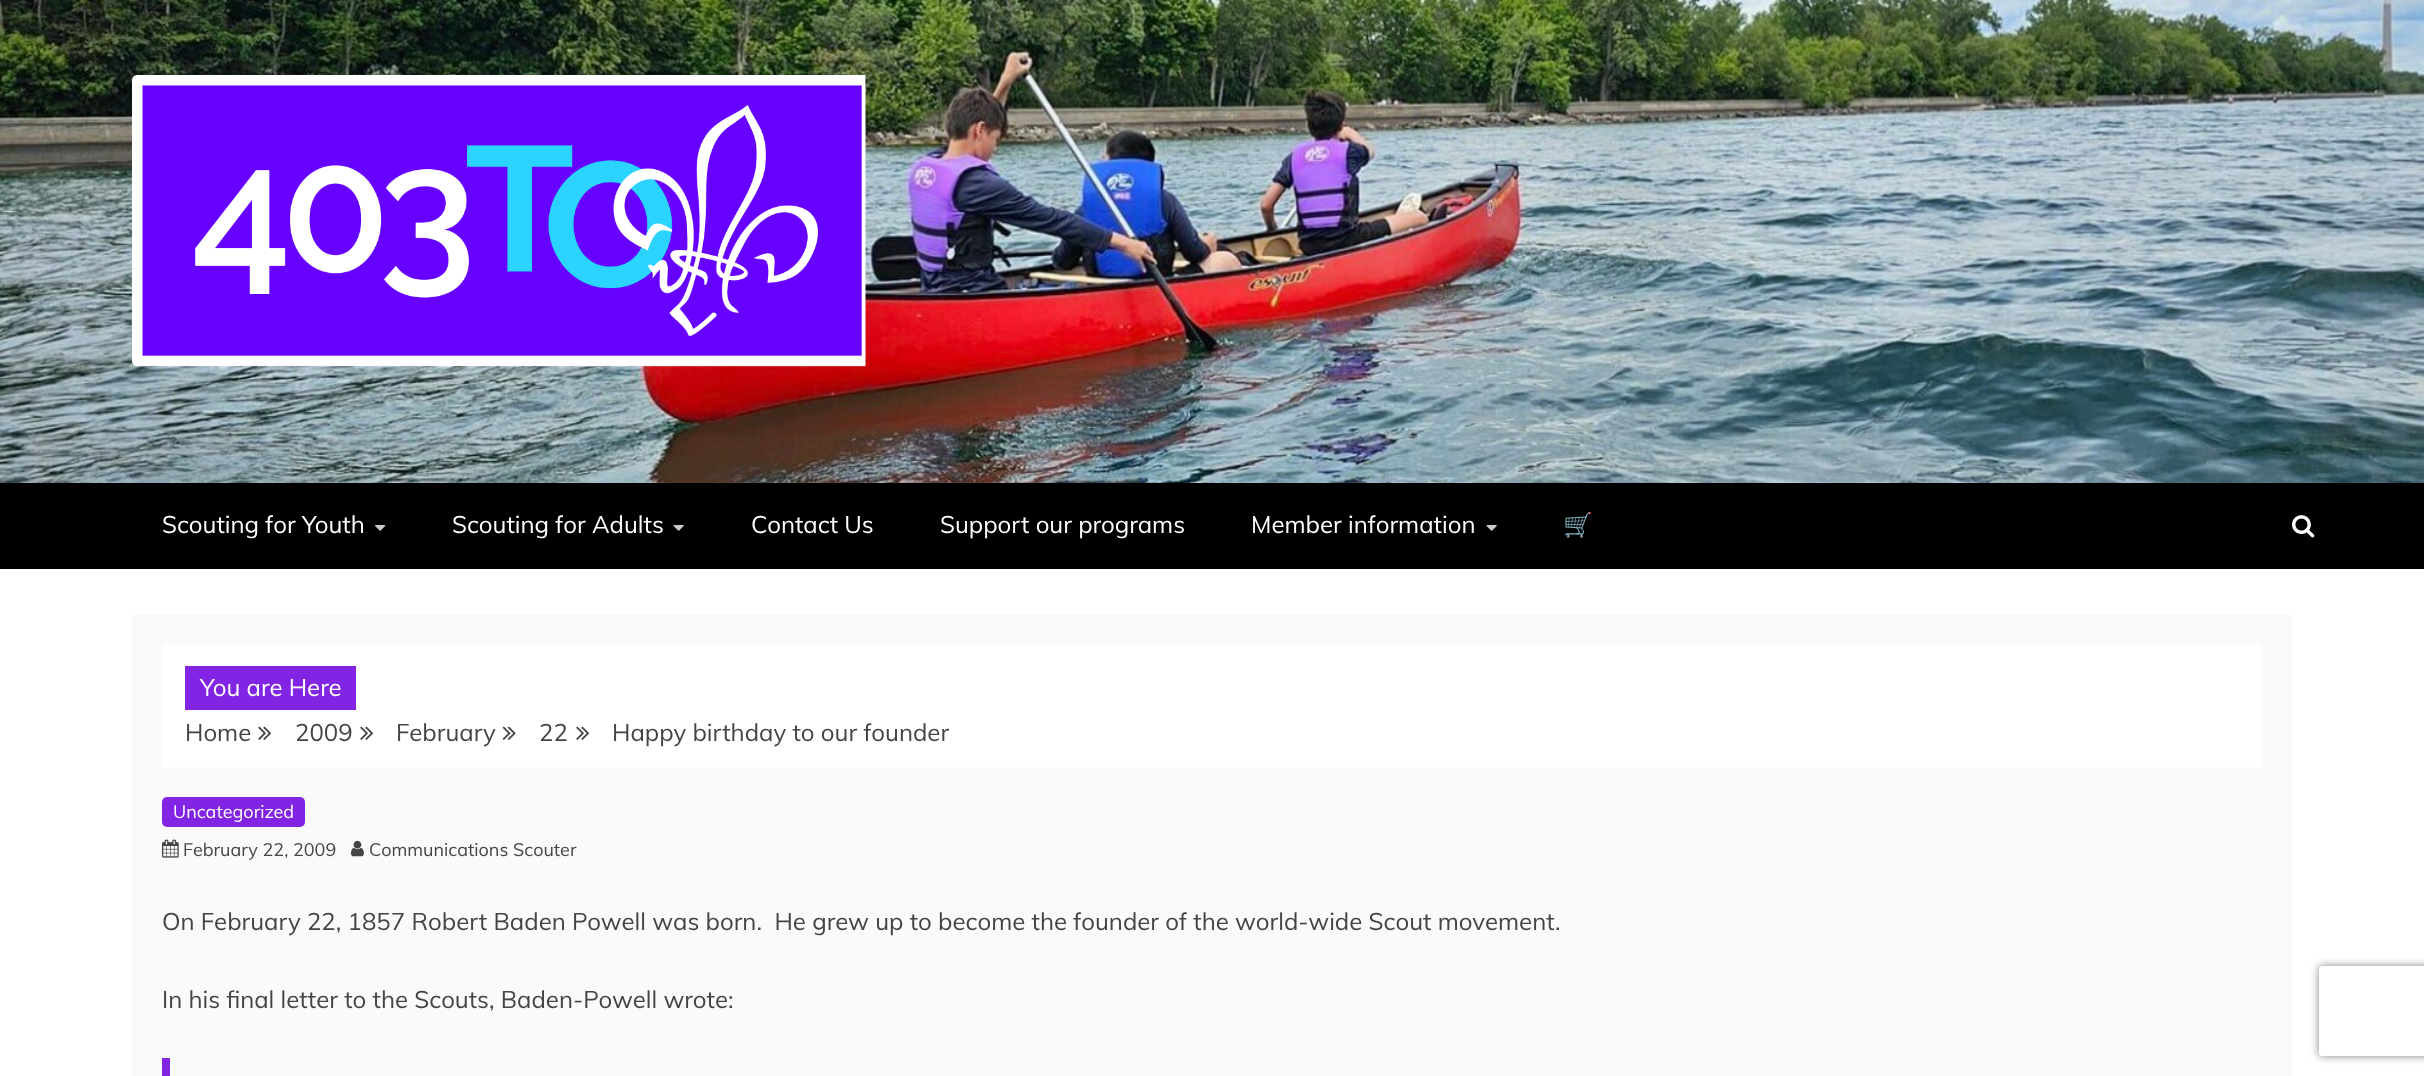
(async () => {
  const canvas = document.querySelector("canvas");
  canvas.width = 2424;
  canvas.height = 1076;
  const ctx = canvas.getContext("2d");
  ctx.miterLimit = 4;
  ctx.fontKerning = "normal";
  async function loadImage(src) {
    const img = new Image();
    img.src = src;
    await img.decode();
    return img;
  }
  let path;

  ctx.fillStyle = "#ffffff";
  ctx.fillRect(0, 0, 2424, 1076);
  ctx.drawImage(await loadImage("img/1.png"), 0, 0, 2424, 483);
  ctx.drawImage(await loadImage("img/2.png"), 132, 75, 734, 292);
  ctx.fillStyle = "#000000";
  ctx.fillRect(0, 483, 2424, 86);
  ctx.drawImage(await loadImage("img/3.png"), 375, 525, 11, 6);
  ctx.drawImage(await loadImage("img/4.png"), 673, 525, 11, 6);
  ctx.drawImage(await loadImage("img/4.png"), 1486, 525, 11, 6);
  ctx.drawImage(await loadImage("img/5.png"), 2292, 515, 23, 23);
  for (const [x, y, w, h, color] of [
    [132, 614, 2160, 462, "#fafafa"],
    [162, 644, 2100, 123, "#ffffff"],
    [185, 666, 171, 44, "#8224e3"],
  ]) {
    ctx.fillStyle = color;
    ctx.fillRect(x, y, w, h);
  }
  ctx.drawImage(await loadImage("img/6.png"), 258, 726, 14, 14);
  ctx.drawImage(await loadImage("img/6.png"), 360, 726, 14, 14);
  ctx.drawImage(await loadImage("img/7.png"), 502, 726, 14, 14);
  ctx.drawImage(await loadImage("img/6.png"), 576, 726, 14, 14);
  ctx.beginPath();
  ctx.roundRect(162, 797, 143, 30, 5);
  ctx.fill();
  ctx.drawImage(await loadImage("img/8.png"), 162, 839, 17, 19);
  ctx.drawImage(await loadImage("img/9.png"), 351, 840, 13, 17);
  ctx.fillRect(162, 1058, 8, 18);
  ctx.save();
  path = new Path2D("M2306 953H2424V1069H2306ZM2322 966H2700C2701.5 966 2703 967.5 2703 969V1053C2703 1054.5 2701.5 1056 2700 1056H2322C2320.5 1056 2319 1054.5 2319 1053V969C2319 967.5 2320.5 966 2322 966Z");
  ctx.clip(path, "evenodd");
  ctx.fillStyle = "#808080";
  ctx.filter = "blur(4px)";
  ctx.beginPath();
  ctx.roundRect(2319, 966, 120, 90, 3);
  ctx.fill();
  ctx.filter = "none";
  ctx.restore();
  ctx.font = "24px Muli";
  ctx.fillStyle = "#ffffff";
  for (const [text, x, y] of [
    ["Scouting for Youth", 162, 533],
    ["Scouting for Adults", 452, 533],
    ["Contact Us", 751, 533],
    ["Support our programs", 940, 533],
    ["Member information", 1251, 533],
  ]) {
    ctx.fillText(text, x, y);
  }
  ctx.font = "24px Noto Color Emoji";
  ctx.fillText("🛒", 1563, 533);
  ctx.font = "24px Muli";
  ctx.fillText("You are Here", 200, 696);
  ctx.fillStyle = "#444444";
  for (const [text, x, y] of [
    ["Home", 185, 741],
    ["2009", 295, 741],
    ["February", 396, 741],
    ["22", 539, 741],
    ["Happy birthday to our founder", 612, 741],
  ]) {
    ctx.fillText(text, x, y);
  }
  ctx.font = "18px Muli";
  ctx.fillStyle = "#ffffff";
  ctx.fillText("Uncategorized", 173, 818);
  ctx.fillStyle = "#444444";
  ctx.fillText("February 22, 2009", 183, 856);
  ctx.fillText("Communications Scouter", 369, 856);
  ctx.font = "24px Muli";
  ctx.fillText("On February 22, 1857 Robert Baden Powell was born.  He grew up to become the founder of the world-wide Scout movement.", 162, 930);
  ctx.fillText("In his final letter to the Scouts, Baden-Powell wrote:", 162, 1008);
})();
